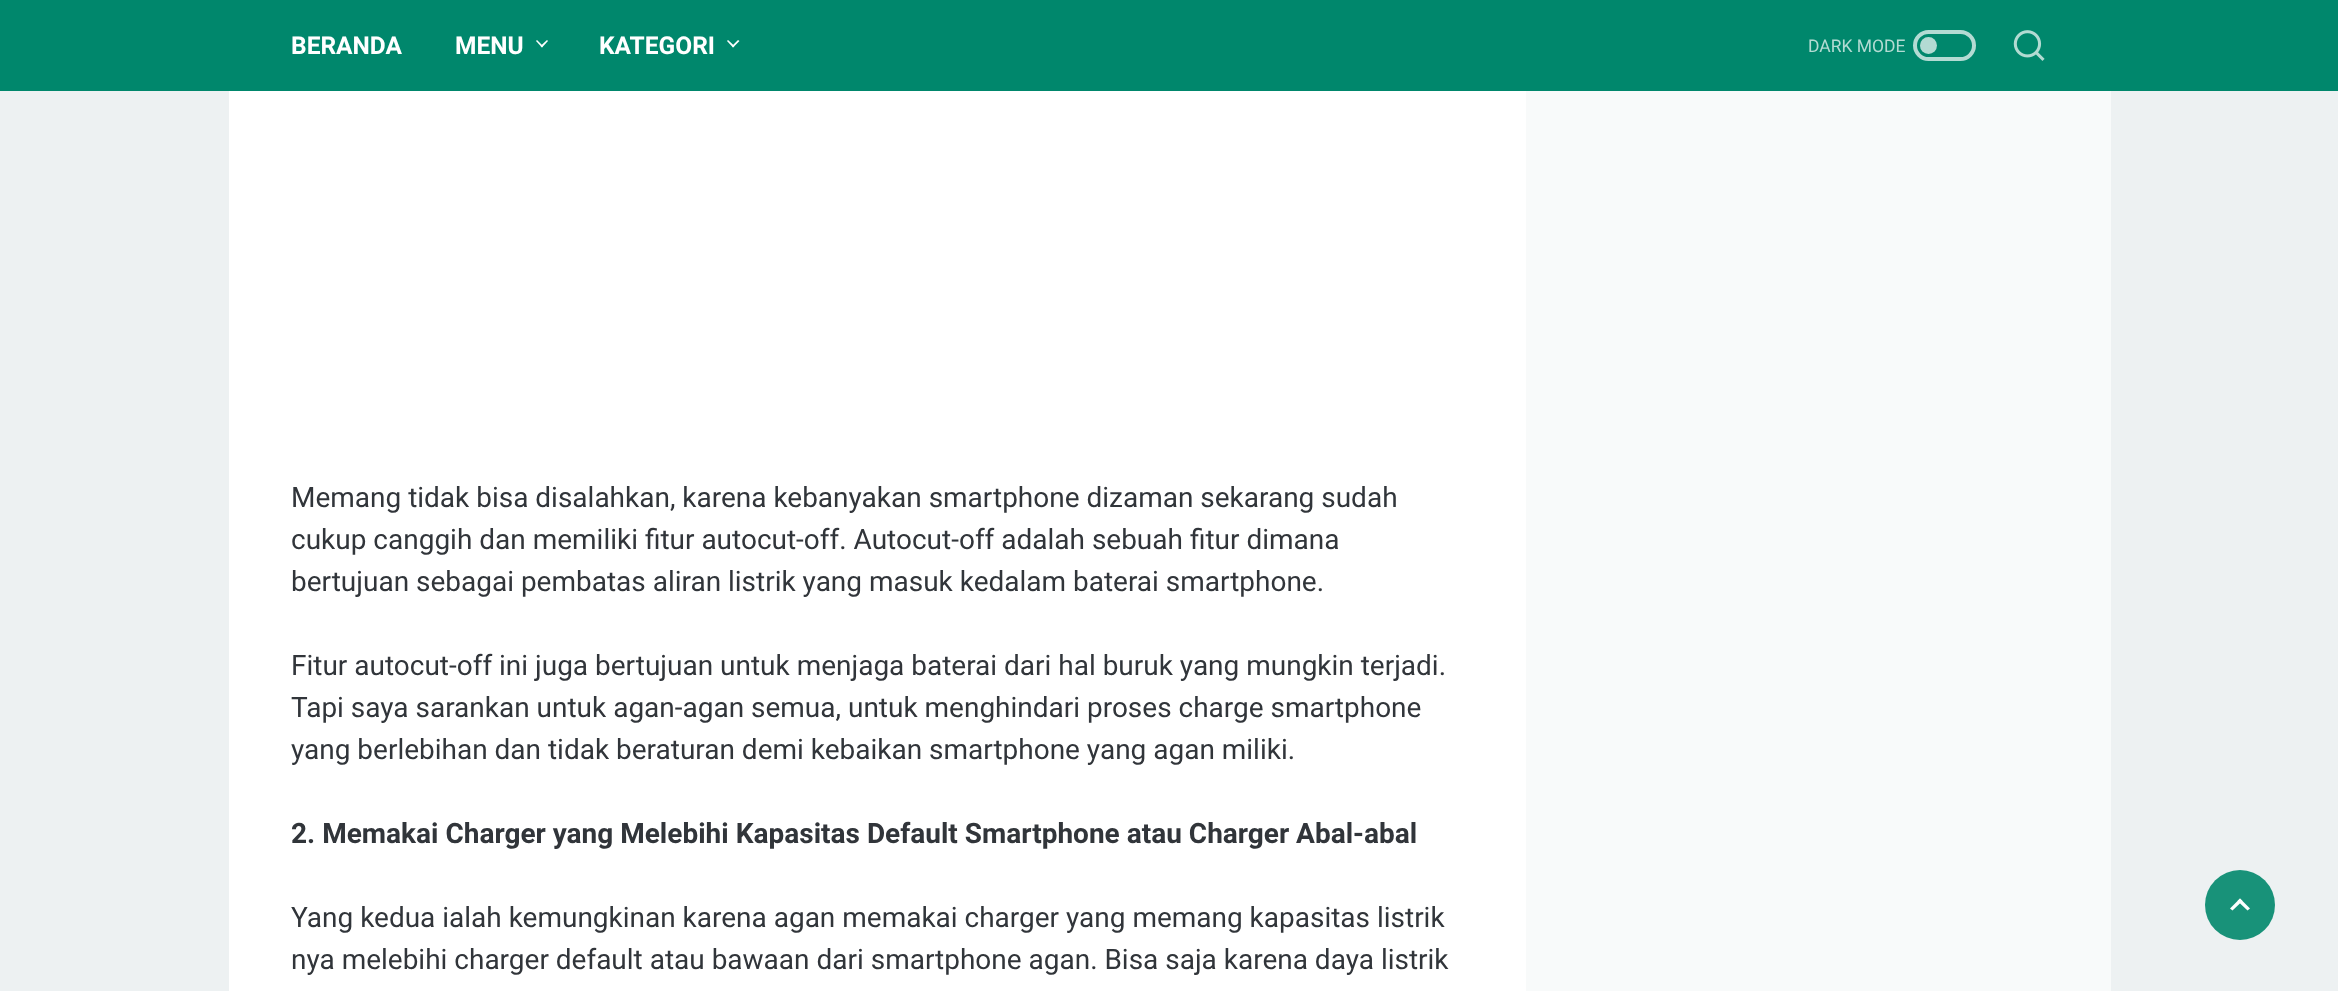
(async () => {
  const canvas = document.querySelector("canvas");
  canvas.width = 2338;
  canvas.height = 991;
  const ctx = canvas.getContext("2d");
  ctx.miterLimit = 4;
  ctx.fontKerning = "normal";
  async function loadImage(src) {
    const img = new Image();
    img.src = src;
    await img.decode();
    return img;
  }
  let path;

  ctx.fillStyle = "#edf1f2";
  ctx.fillRect(0, 0, 2338, 991);
  ctx.fillStyle = "#00876c";
  ctx.fillRect(0, 0, 2338, 91);
  ctx.fillStyle = "#ffffff";
  path = new Path2D("M540.5 46L547 40L548 41L542 47.5Z");
  ctx.fill(path);
  path = new Path2D("M536 41L537 40L543 46L542 47.5Z");
  ctx.fill(path);
  path = new Path2D("M732 46L738 40L739.5 41L733 47.5Z");
  ctx.fill(path);
  path = new Path2D("M727 41L728 40L734.5 46L733 47.5Z");
  ctx.fill(path);
  ctx.beginPath();
  ctx.roundRect(1915, 32, 59, 27, 13.5);
  ctx.strokeStyle = "#b3dbd3";
  ctx.lineWidth = 4;
  ctx.stroke();
  ctx.fillStyle = "#b3dbd3";
  ctx.beginPath();
  ctx.arc(1928.5, 45.5, 8.5, 0, Math.PI * 2);
  ctx.fill();
  ctx.drawImage(await loadImage("img/1.png"), 2013, 30, 32, 31);
  ctx.fillStyle = "#ffffff";
  ctx.fillRect(229, 91, 1297, 900);
  ctx.fillStyle = "#f8fafa";
  ctx.fillRect(1526, 91, 585, 900);
  ctx.fillStyle = "#189279";
  ctx.beginPath();
  ctx.arc(2240, 905, 35, 0, Math.PI * 2);
  ctx.fill();
  ctx.fillStyle = "#fdfefe";
  path = new Path2D("M2230 908.5L2240 898.5L2242.5 901L2232.5 910.5Z");
  ctx.fill(path);
  path = new Path2D("M2237.5 901L2240 898.5L2250 908.5L2247.5 910.5Z");
  ctx.fill(path);
  ctx.font = "bold 24.5px Roboto";
  ctx.fillStyle = "#ffffff";
  for (const [text, x, y] of [
    ["BERANDA", 291, 54],
    ["MENU", 455, 54],
    ["KATEGORI", 599, 54],
  ]) {
    ctx.fillText(text, x, y);
  }
  ctx.font = "17.5px Roboto";
  ctx.fillStyle = "#b3dbd3";
  ctx.fillText("DARK MODE", 1808, 52);
  ctx.font = "28px Roboto";
  ctx.fillStyle = "#31353a";
  for (const [text, x, y] of [
    ["Memang tidak bisa disalahkan, karena kebanyakan smartphone dizaman sekarang sudah", 291, 507],
    ["cukup canggih dan memiliki fitur autocut-off. Autocut-off adalah sebuah fitur dimana", 291, 549],
    ["bertujuan sebagai pembatas aliran listrik yang masuk kedalam baterai smartphone.", 291, 591],
    ["Fitur autocut-off ini juga bertujuan untuk menjaga baterai dari hal buruk yang mungkin terjadi.", 291, 675],
    ["Tapi saya sarankan untuk agan-agan semua, untuk menghindari proses charge smartphone", 291, 717],
    ["yang berlebihan dan tidak beraturan demi kebaikan smartphone yang agan miliki.", 291, 759],
  ]) {
    ctx.fillText(text, x, y);
  }
  ctx.font = "bold 28px Roboto";
  ctx.fillText("2. Memakai Charger yang Melebihi Kapasitas Default Smartphone atau Charger Abal-abal", 291, 843);
  ctx.font = "28px Roboto";
  ctx.fillText("Yang kedua ialah kemungkinan karena agan memakai charger yang memang kapasitas listrik", 291, 927);
  ctx.fillText("nya melebihi charger default atau bawaan dari smartphone agan. Bisa saja karena daya listrik", 291, 969);
})();
